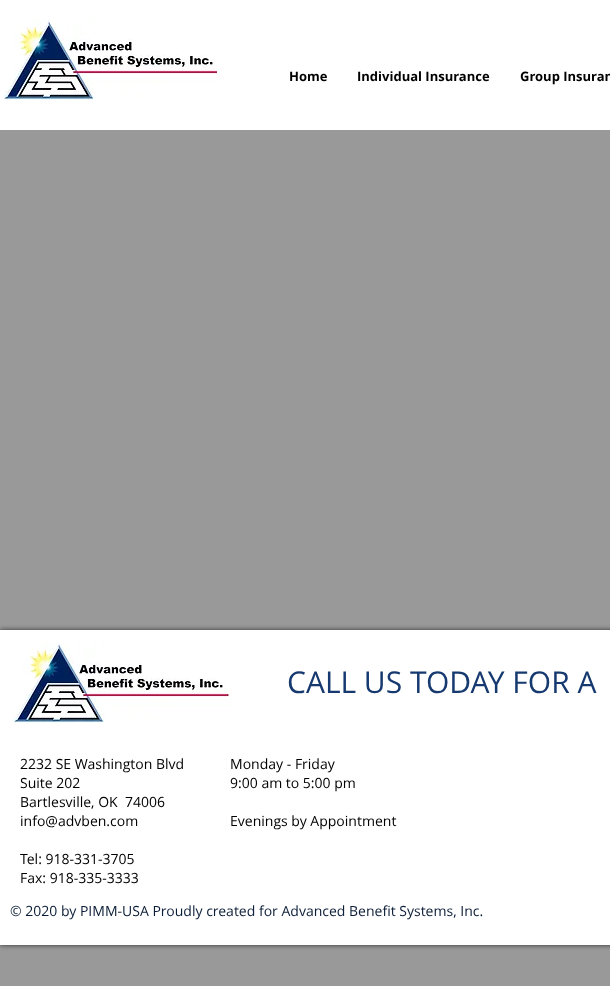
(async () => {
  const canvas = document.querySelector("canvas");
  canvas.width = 610;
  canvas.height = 986;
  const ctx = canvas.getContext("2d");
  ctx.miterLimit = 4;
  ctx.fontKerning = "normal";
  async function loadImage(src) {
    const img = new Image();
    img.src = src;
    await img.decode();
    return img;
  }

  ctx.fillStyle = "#999999";
  ctx.fillRect(0, 0, 610, 986);
  ctx.fillStyle = "#ffffff";
  ctx.fillRect(0, 0, 610, 130);
  ctx.drawImage(await loadImage("img/1.png"), 3, 19, 214, 82);
  ctx.fillStyle = "rgba(0, 0, 0, 0.7)";
  ctx.filter = "blur(2.5px)";
  ctx.beginPath();
  ctx.rect(0, 630, 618, 315);
  ctx.fill();
  ctx.filter = "none";
  ctx.fillStyle = "#ffffff";
  ctx.fillRect(0, 630, 610, 315);
  ctx.drawImage(await loadImage("img/2.png"), 13, 643, 219, 80);
  ctx.font = "bold 13px Open Sans";
  ctx.fillStyle = "#000000";
  for (const [text, x, y] of [
    ["Home", 289, 81],
    ["Individual Insurance", 357, 81],
    ["Group Insuran", 520, 81],
  ]) {
    ctx.fillText(text, x, y);
  }
  ctx.font = "30px Open Sans";
  ctx.fillStyle = "#16396f";
  ctx.fillText("CALL US TODAY FOR A", 287, 693);
  ctx.font = "14px Open Sans";
  ctx.fillStyle = "#000000";
  for (const [text, x, y] of [
    ["2232 SE Washington Blvd", 20, 769],
    ["Suite 202", 20, 788],
    ["Bartlesville, OK  74006", 20, 807],
    ["info@advben.com", 20, 826],
    ["Tel: 918-331-3705", 20, 864],
    ["Fax: 918-335-3333", 20, 883],
    ["Monday - Friday", 230, 769],
    ["9:00 am to 5:00 pm", 230, 788],
    ["Evenings by Appointment", 230, 826],
  ]) {
    ctx.fillText(text, x, y);
  }
  ctx.fillStyle = "#0b1d37";
  ctx.fillText("© 2020 by PIMM-USA Proudly created for Advanced Benefit Systems, Inc.", 10, 916);
})();
